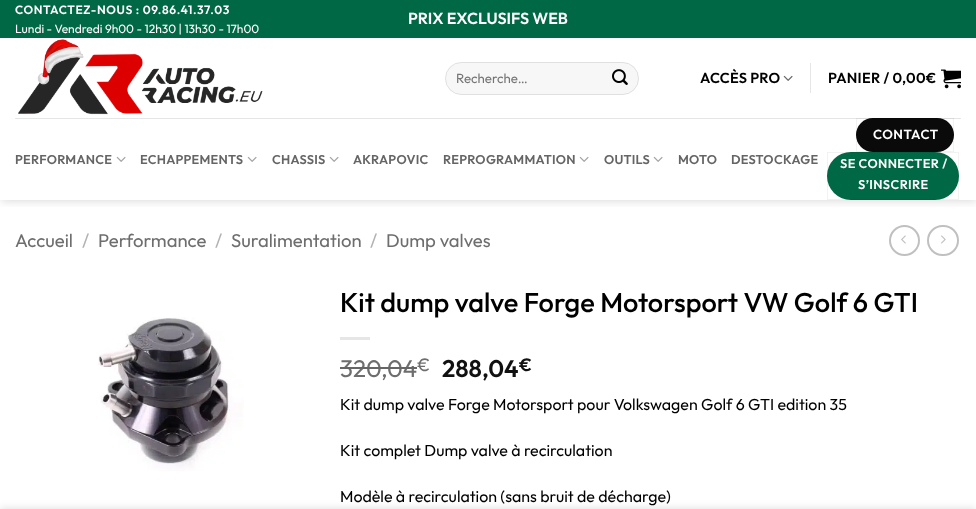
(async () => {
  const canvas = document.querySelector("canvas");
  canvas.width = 976;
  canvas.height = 509;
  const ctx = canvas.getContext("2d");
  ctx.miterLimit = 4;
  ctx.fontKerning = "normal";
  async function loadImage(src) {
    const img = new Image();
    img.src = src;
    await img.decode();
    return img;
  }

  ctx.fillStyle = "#ffffff";
  ctx.fillRect(0, 0, 976, 509);
  ctx.save();
  ctx.beginPath();
  ctx.rect(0, 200, 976, 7);
  ctx.clip();
  ctx.fillStyle = "rgba(0, 0, 0, 0.15)";
  ctx.filter = "blur(5px)";
  ctx.beginPath();
  ctx.rect(1, 1, 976, 200);
  ctx.fill();
  ctx.filter = "none";
  ctx.restore();
  ctx.fillStyle = "#006845";
  ctx.fillRect(0, 0, 976, 38);
  ctx.drawImage(await loadImage("img/1.png"), 18, 39, 245, 76);
  ctx.fillStyle = "#f7f7f7";
  ctx.beginPath();
  ctx.roundRect(445, 62, 194, 33, 16.5);
  ctx.fill();
  ctx.beginPath();
  ctx.roundRect(445.5, 62.5, 193, 32, 16);
  ctx.strokeStyle = "rgba(0, 0, 0, 0.09)";
  ctx.stroke();
  ctx.drawImage(await loadImage("img/2.png"), 612, 69, 16, 16);
  ctx.drawImage(await loadImage("img/3.png"), 783, 75, 10, 6);
  ctx.fillStyle = "#e6e6e6";
  ctx.fillRect(810, 63, 1, 30);
  ctx.drawImage(await loadImage("img/4.png"), 941, 69, 20, 20);
  ctx.fillStyle = "#0a0a0a";
  ctx.beginPath();
  ctx.roundRect(856, 118, 98, 34, 17);
  ctx.fill();
  ctx.strokeStyle = "rgba(0, 0, 0, 0.05)";
  ctx.strokeRect(856.5, 118.5, 97, 33);
  ctx.fillStyle = "rgba(0, 0, 0, 0.1)";
  ctx.fillRect(15, 118, 946, 1);
  ctx.drawImage(await loadImage("img/5.png"), 116, 156, 10, 6);
  ctx.drawImage(await loadImage("img/5.png"), 247, 156, 10, 6);
  ctx.drawImage(await loadImage("img/5.png"), 329, 156, 10, 6);
  ctx.drawImage(await loadImage("img/5.png"), 579, 156, 10, 6);
  ctx.drawImage(await loadImage("img/5.png"), 653, 156, 10, 6);
  ctx.fillStyle = "#006845";
  ctx.beginPath();
  ctx.roundRect(827, 152, 132, 48, 24);
  ctx.fill();
  ctx.strokeRect(827.5, 152.5, 131, 47);
  ctx.beginPath();
  ctx.arc(904.5, 240.5, 14.5, 0, Math.PI * 2);
  ctx.strokeStyle = "#c0c0c0";
  ctx.lineWidth = 2;
  ctx.stroke();
  ctx.drawImage(await loadImage("img/6.png"), 901, 235, 5, 9);
  ctx.beginPath();
  ctx.roundRect(928, 226, 30, 29, 14.5);
  ctx.stroke();
  ctx.drawImage(await loadImage("img/7.png"), 941, 235, 5, 9);
  ctx.drawImage(await loadImage("img/8.png"), 98, 317, 146, 154);
  ctx.fillStyle = "#e6e6e6";
  ctx.fillRect(340, 337, 30, 3);
  ctx.fillStyle = "rgba(0, 0, 0, 0.14)";
  ctx.filter = "blur(4.5px)";
  ctx.beginPath();
  ctx.rect(0, 509, 976, 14);
  ctx.fill();
  ctx.filter = "none";
  ctx.letterSpacing = "0.6px";
  ctx.font = "600 12px Outfit";
  ctx.fillStyle = "#ffffff";
  ctx.fillText("CONTACTEZ-NOUS : 09.86.41.37.03", 15, 14);
  ctx.letterSpacing = "0px";
  ctx.font = "12px Outfit";
  ctx.fillText("Lundi - Vendredi 9h00 - 12h30 | 13h30 - 17h00", 15, 33);
  ctx.font = "600 16px Outfit";
  ctx.fillText("PRIX EXCLUSIFS WEB", 408, 24);
  ctx.font = "13.25px Outfit";
  ctx.fillStyle = "#757575";
  ctx.fillText("Recherche…", 456, 83);
  ctx.letterSpacing = "0.25px";
  ctx.font = "600 14.5px Outfit";
  ctx.fillStyle = "#000000";
  ctx.fillText("ACCÈS PRO", 700, 83);
  ctx.fillText("PANIER / 0,00€", 828, 83);
  ctx.font = "600 12.75px Outfit";
  ctx.fillStyle = "#656565";
  for (const [text, x, y] of [
    ["PERFORMANCE", 15, 164],
    ["ECHAPPEMENTS", 140, 164],
    ["CHASSIS", 272, 164],
    ["AKRAPOVIC", 353, 164],
    ["REPROGRAMMATION", 443, 164],
    ["OUTILS", 604, 164],
    ["MOTO", 678, 164],
    ["DESTOCKAGE", 731, 164],
  ]) {
    ctx.fillText(text, x, y);
  }
  ctx.letterSpacing = "0.5px";
  ctx.font = "600 13.25px Outfit";
  ctx.fillStyle = "#ffffff";
  ctx.fillText("CONTACT", 873, 139);
  ctx.letterSpacing = "0.4px";
  ctx.font = "600 12.75px Outfit";
  ctx.fillText("SE CONNECTER /", 840, 168);
  ctx.fillText("S’INSCRIRE", 858, 189);
  ctx.letterSpacing = "0px";
  ctx.font = "18.5px Outfit";
  ctx.fillStyle = "#6e6e6e";
  ctx.fillText("Accueil", 15, 247);
  ctx.fillStyle = "#b2b2b2";
  ctx.fillText("/", 82, 247);
  ctx.fillStyle = "#6e6e6e";
  ctx.fillText("Performance", 98, 247);
  ctx.fillStyle = "#b2b2b2";
  ctx.fillText("/", 215, 247);
  ctx.fillStyle = "#6e6e6e";
  ctx.fillText("Suralimentation", 231, 247);
  ctx.fillStyle = "#b2b2b2";
  ctx.fillText("/", 370, 247);
  ctx.fillStyle = "#6e6e6e";
  ctx.fillText("Dump valves", 386, 247);
  ctx.font = "500 27.2px Outfit";
  ctx.fillStyle = "#000000";
  ctx.fillText("Kit dump valve Forge Motorsport VW Golf 6 GTI", 340, 312);
  ctx.font = "24px Outfit";
  ctx.fillStyle = "#6e6e6e";
  ctx.fillText("320,04", 340, 377);
  ctx.fillStyle = "#666666";
  ctx.fillRect(340, 367, 77, 2);
  ctx.font = "18px Outfit";
  ctx.fillStyle = "#6e6e6e";
  ctx.fillText("€", 417, 371);
  ctx.font = "600 24px Outfit";
  ctx.fillStyle = "#111111";
  ctx.fillText("288,04", 442, 377);
  ctx.font = "600 18px Outfit";
  ctx.fillText("€", 519, 371);
  ctx.font = "16px Outfit";
  ctx.fillStyle = "#000000";
  for (const [text, x, y] of [
    ["Kit dump valve Forge Motorsport pour Volkswagen Golf 6 GTI edition 35", 340, 410],
    ["Kit complet Dump valve à recirculation", 340, 456],
    ["Modèle à recirculation (sans bruit de décharge)", 340, 502],
  ]) {
    ctx.fillText(text, x, y);
  }
})();
